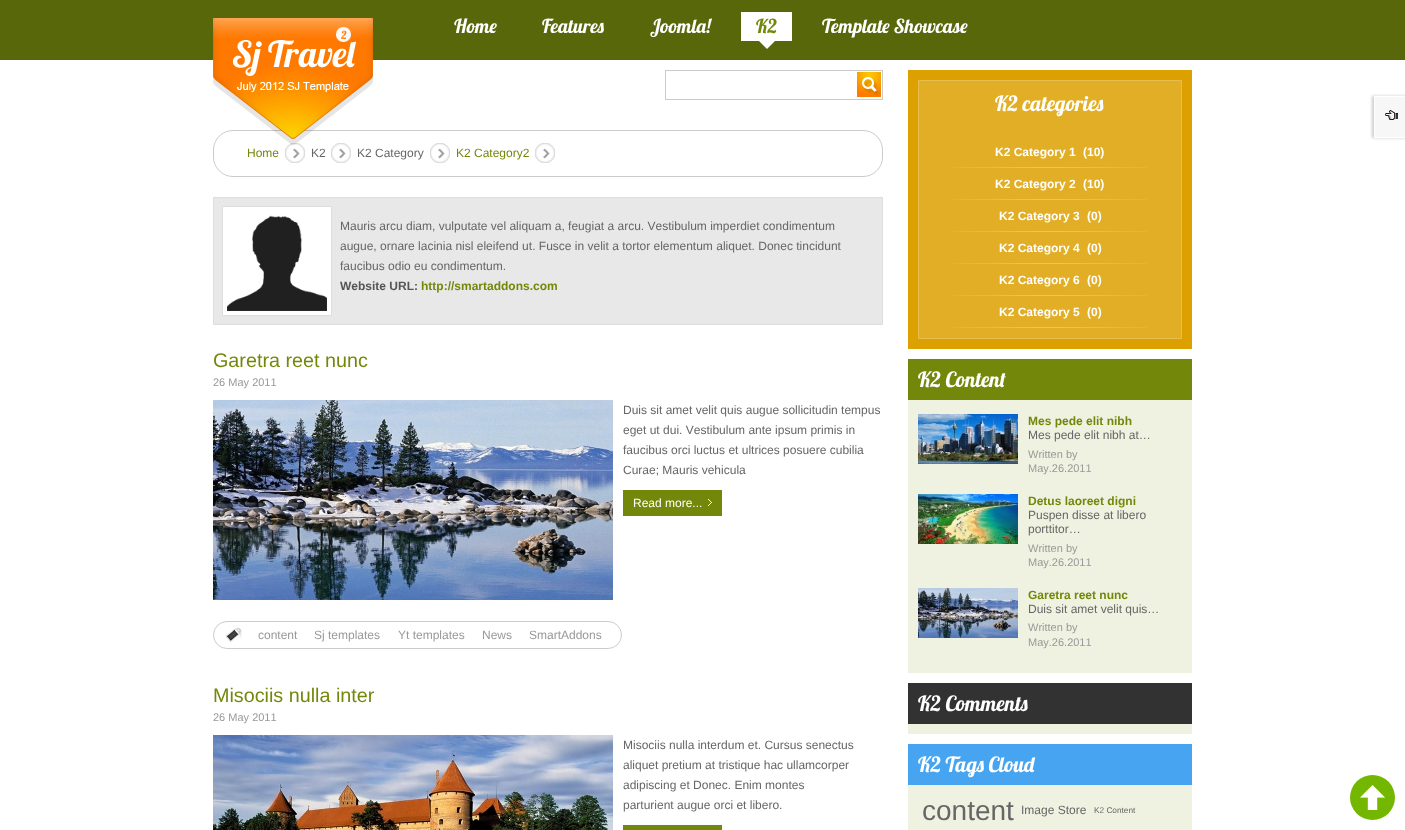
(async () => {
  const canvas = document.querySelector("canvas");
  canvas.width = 1405;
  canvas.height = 830;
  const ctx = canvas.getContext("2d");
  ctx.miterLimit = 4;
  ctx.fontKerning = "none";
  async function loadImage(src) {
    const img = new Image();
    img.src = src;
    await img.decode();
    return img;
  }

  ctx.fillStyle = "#ffffff";
  ctx.fillRect(0, 0, 1405, 830);
  ctx.fillStyle = "#57670a";
  ctx.fillRect(0, 0, 1405, 60);
  ctx.beginPath();
  ctx.roundRect(213.5, 130.5, 669, 46, 19.5);
  ctx.strokeStyle = "#cbcbcb";
  ctx.stroke();
  ctx.drawImage(await loadImage("img/4.png"), 285, 143, 20, 20);
  ctx.drawImage(await loadImage("img/4.png"), 331, 143, 20, 20);
  ctx.drawImage(await loadImage("img/1.png"), 213, 18, 160, 127);
  ctx.drawImage(await loadImage("img/2.png"), 759, 41, 16, 8);
  ctx.fillStyle = "#ffffff";
  ctx.fillRect(741, 12, 51, 29);
  ctx.strokeRect(665.5, 70.5, 217, 29);
  ctx.drawImage(await loadImage("img/3.png"), 857, 72, 24, 25);
  ctx.drawImage(await loadImage("img/4.png"), 430, 143, 20, 20);
  ctx.drawImage(await loadImage("img/4.png"), 535, 143, 20, 20);
  ctx.fillStyle = "#e8e8e8";
  ctx.beginPath();
  ctx.rect(213.5, 197.5, 669, 127);
  ctx.fill();
  ctx.strokeStyle = "#dddddd";
  ctx.stroke();
  ctx.fillStyle = "#ffffff";
  ctx.beginPath();
  ctx.rect(222.5, 206.5, 109, 109);
  ctx.fill();
  ctx.stroke();
  ctx.drawImage(await loadImage("img/5.png"), 227, 215, 100, 96);
  ctx.drawImage(await loadImage("img/6.png"), 213, 400, 400, 200);
  ctx.fillStyle = "#73880a";
  ctx.fillRect(623, 490, 99, 26);
  ctx.drawImage(await loadImage("img/7.png"), 708, 499, 4, 7);
  ctx.beginPath();
  ctx.roundRect(213.5, 621.5, 408, 27, 13.5);
  ctx.strokeStyle = "#cbcbcb";
  ctx.stroke();
  ctx.drawImage(await loadImage("img/8.png"), 226, 628, 16, 14);
  ctx.drawImage(await loadImage("img/9.png"), 213, 735, 400, 95);
  ctx.fillRect(623, 825, 99, 5);
  ctx.fillStyle = "#dca000";
  ctx.fillRect(908, 70, 284, 279);
  ctx.fillStyle = "#e1ae26";
  ctx.beginPath();
  ctx.rect(918.5, 80.5, 263, 258);
  ctx.fill();
  ctx.strokeStyle = "#e7bd4d";
  ctx.stroke();
  ctx.drawImage(await loadImage("img/10.png"), 953, 167, 194, 1);
  ctx.drawImage(await loadImage("img/10.png"), 953, 199, 194, 1);
  ctx.drawImage(await loadImage("img/10.png"), 953, 231, 194, 1);
  ctx.drawImage(await loadImage("img/10.png"), 953, 263, 194, 1);
  ctx.drawImage(await loadImage("img/10.png"), 953, 295, 194, 1);
  ctx.drawImage(await loadImage("img/10.png"), 953, 327, 194, 1);
  ctx.fillStyle = "#eff2e1";
  ctx.fillRect(908, 400, 284, 273);
  ctx.fillStyle = "#73880a";
  ctx.fillRect(908, 359, 284, 41);
  ctx.drawImage(await loadImage("img/11.png"), 918, 414, 100, 50);
  ctx.drawImage(await loadImage("img/12.png"), 918, 494, 100, 50);
  ctx.drawImage(await loadImage("img/13.png"), 918, 588, 100, 50);
  for (const [x, y, w, h, color] of [
    [908, 724, 284, 10, "#eff2e1"],
    [908, 683, 284, 41, "#323232"],
    [908, 785, 284, 45, "#eff2e1"],
    [908, 744, 284, 41, "#47a4f1"],
  ]) {
    ctx.fillStyle = color;
    ctx.fillRect(x, y, w, h);
  }
  ctx.fillStyle = "rgba(0, 0, 0, 0.2)";
  ctx.filter = "blur(1.5px)";
  ctx.beginPath();
  ctx.rect(1372, 96, 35, 42);
  ctx.fill();
  ctx.filter = "none";
  for (const [x, y, w, h, color] of [
    [1375, 97, 30, 40, "#f7f7f7"],
    [1374, 96, 31, 1, "#ffffff"],
    [1374, 137, 31, 1, "#ffffff"],
    [1374, 96, 1, 42, "#ffffff"],
  ]) {
    ctx.fillStyle = color;
    ctx.fillRect(x, y, w, h);
  }
  ctx.drawImage(await loadImage("img/14.png"), 1385, 110, 13, 10);
  ctx.fillStyle = "#73b700";
  ctx.beginPath();
  ctx.arc(1372.5, 797.5, 22.5, 0, Math.PI * 2);
  ctx.fill();
  ctx.drawImage(await loadImage("img/15.png"), 1360, 785, 25, 25);
  ctx.font = "19.25px Lobster";
  ctx.fillStyle = "#ffffff";
  for (const [text, x, y] of [
    ["Home", 454, 33],
    ["Features", 542, 33],
    ["Joomla!", 650, 33],
  ]) {
    ctx.fillText(text, x, y);
  }
  ctx.fillStyle = "#73880a";
  ctx.fillText("K2", 756, 33);
  ctx.fillStyle = "#ffffff";
  ctx.fillText("Template Showcase", 822, 33);
  ctx.font = "12px Liberation Sans";
  ctx.fillStyle = "#73880a";
  ctx.fillText("Home", 247, 157);
  ctx.fillStyle = "#666666";
  ctx.fillText("K2", 311, 157);
  ctx.fillText("K2 Category", 357, 157);
  ctx.fillStyle = "#73880a";
  ctx.fillText("K2 Category2", 456, 157);
  ctx.fillStyle = "#666666";
  for (const [text, x, y] of [
    ["Mauris arcu diam, vulputate vel aliquam a, feugiat a arcu. Vestibulum imperdiet condimentum", 340, 230],
    ["augue, ornare lacinia nisl eleifend ut. Fusce in velit a tortor elementum aliquet. Donec tincidunt", 340, 250],
    ["faucibus odio eu condimentum.", 340, 270],
  ]) {
    ctx.fillText(text, x, y);
  }
  ctx.font = "bold 12px Liberation Sans";
  ctx.fillStyle = "#555555";
  ctx.fillText("Website URL:", 340, 290);
  ctx.fillStyle = "#73880a";
  ctx.fillText("http://smartaddons.com", 421, 290);
  ctx.font = "19.75px Liberation Sans";
  ctx.fillText("Garetra reet nunc", 213, 367);
  ctx.font = "11px Liberation Sans";
  ctx.fillStyle = "#999999";
  ctx.fillText("26 May 2011", 213, 386);
  ctx.font = "12px Liberation Sans";
  ctx.fillStyle = "#666666";
  for (const [text, x, y] of [
    ["Duis sit amet velit quis augue sollicitudin tempus", 623, 414],
    ["eget ut dui. Vestibulum ante ipsum primis in", 623, 434],
    ["faucibus orci luctus et ultrices posuere cubilia", 623, 454],
    ["Curae; Mauris vehicula", 623, 474],
  ]) {
    ctx.fillText(text, x, y);
  }
  ctx.fillStyle = "#ffffff";
  ctx.fillText("Read more...", 633, 507);
  ctx.fillStyle = "#999999";
  for (const [text, x, y] of [
    ["content", 258, 639],
    ["Sj templates", 314, 639],
    ["Yt templates", 398, 639],
    ["News", 482, 639],
    ["SmartAddons", 529, 639],
  ]) {
    ctx.fillText(text, x, y);
  }
  ctx.font = "19.75px Liberation Sans";
  ctx.fillStyle = "#73880a";
  ctx.fillText("Misociis nulla inter", 213, 702);
  ctx.font = "11px Liberation Sans";
  ctx.fillStyle = "#999999";
  ctx.fillText("26 May 2011", 213, 721);
  ctx.font = "12px Liberation Sans";
  ctx.fillStyle = "#666666";
  for (const [text, x, y] of [
    ["Misociis nulla interdum et. Cursus senectus", 623, 749],
    ["aliquet pretium at tristique hac ullamcorper", 623, 769],
    ["adipiscing et Donec. Enim montes", 623, 789],
    ["parturient augue orci et libero.", 623, 809],
  ]) {
    ctx.fillText(text, x, y);
  }
  ctx.font = "21px Lobster";
  ctx.fillStyle = "#ffffff";
  ctx.fillText("K2 categories", 995, 111);
  ctx.font = "bold 12px Liberation Sans";
  for (const [text, x, y] of [
    ["K2 Category 1", 995, 156],
    ["(10)", 1083, 156],
    ["K2 Category 2", 995, 188],
    ["(10)", 1083, 188],
    ["K2 Category 3", 999, 220],
    ["(0)", 1087, 220],
    ["K2 Category 4", 999, 252],
    ["(0)", 1087, 252],
    ["K2 Category 6", 999, 284],
    ["(0)", 1087, 284],
    ["K2 Category 5", 999, 316],
    ["(0)", 1087, 316],
  ]) {
    ctx.fillText(text, x, y);
  }
  ctx.font = "21px Lobster";
  ctx.fillText("K2 Content", 918, 387);
  ctx.font = "bold 12px Liberation Sans";
  ctx.fillStyle = "#73880a";
  ctx.fillText("Mes pede elit nibh", 1028, 425);
  ctx.font = "12px Liberation Sans";
  ctx.fillStyle = "#666666";
  ctx.fillText("Mes pede elit nibh at…", 1028, 439);
  ctx.font = "11px Liberation Sans";
  ctx.fillStyle = "#999999";
  ctx.fillText("Written by", 1028, 458);
  ctx.fillText("May.26.2011", 1028, 472);
  ctx.font = "bold 12px Liberation Sans";
  ctx.fillStyle = "#73880a";
  ctx.fillText("Detus laoreet digni", 1028, 505);
  ctx.font = "12px Liberation Sans";
  ctx.fillStyle = "#666666";
  ctx.fillText("Puspen disse at libero", 1028, 519);
  ctx.fillText("porttitor…", 1028, 533);
  ctx.font = "11px Liberation Sans";
  ctx.fillStyle = "#999999";
  ctx.fillText("Written by", 1028, 552);
  ctx.fillText("May.26.2011", 1028, 566);
  ctx.font = "bold 12px Liberation Sans";
  ctx.fillStyle = "#73880a";
  ctx.fillText("Garetra reet nunc", 1028, 599);
  ctx.font = "12px Liberation Sans";
  ctx.fillStyle = "#666666";
  ctx.fillText("Duis sit amet velit quis…", 1028, 613);
  ctx.font = "11px Liberation Sans";
  ctx.fillStyle = "#999999";
  ctx.fillText("Written by", 1028, 631);
  ctx.fillText("May.26.2011", 1028, 646);
  ctx.font = "21px Lobster";
  ctx.fillStyle = "#ffffff";
  ctx.fillText("K2 Comments", 918, 711);
  ctx.fillText("K2 Tags Cloud", 918, 772);
  ctx.font = "28px Liberation Sans";
  ctx.fillStyle = "#666666";
  ctx.fillText("content", 922, 820);
  ctx.font = "12px Liberation Sans";
  ctx.fillText("Image Store", 1021, 814);
  ctx.font = "8.25px Liberation Sans";
  ctx.fillText("K2 Content", 1094, 813);
})();
